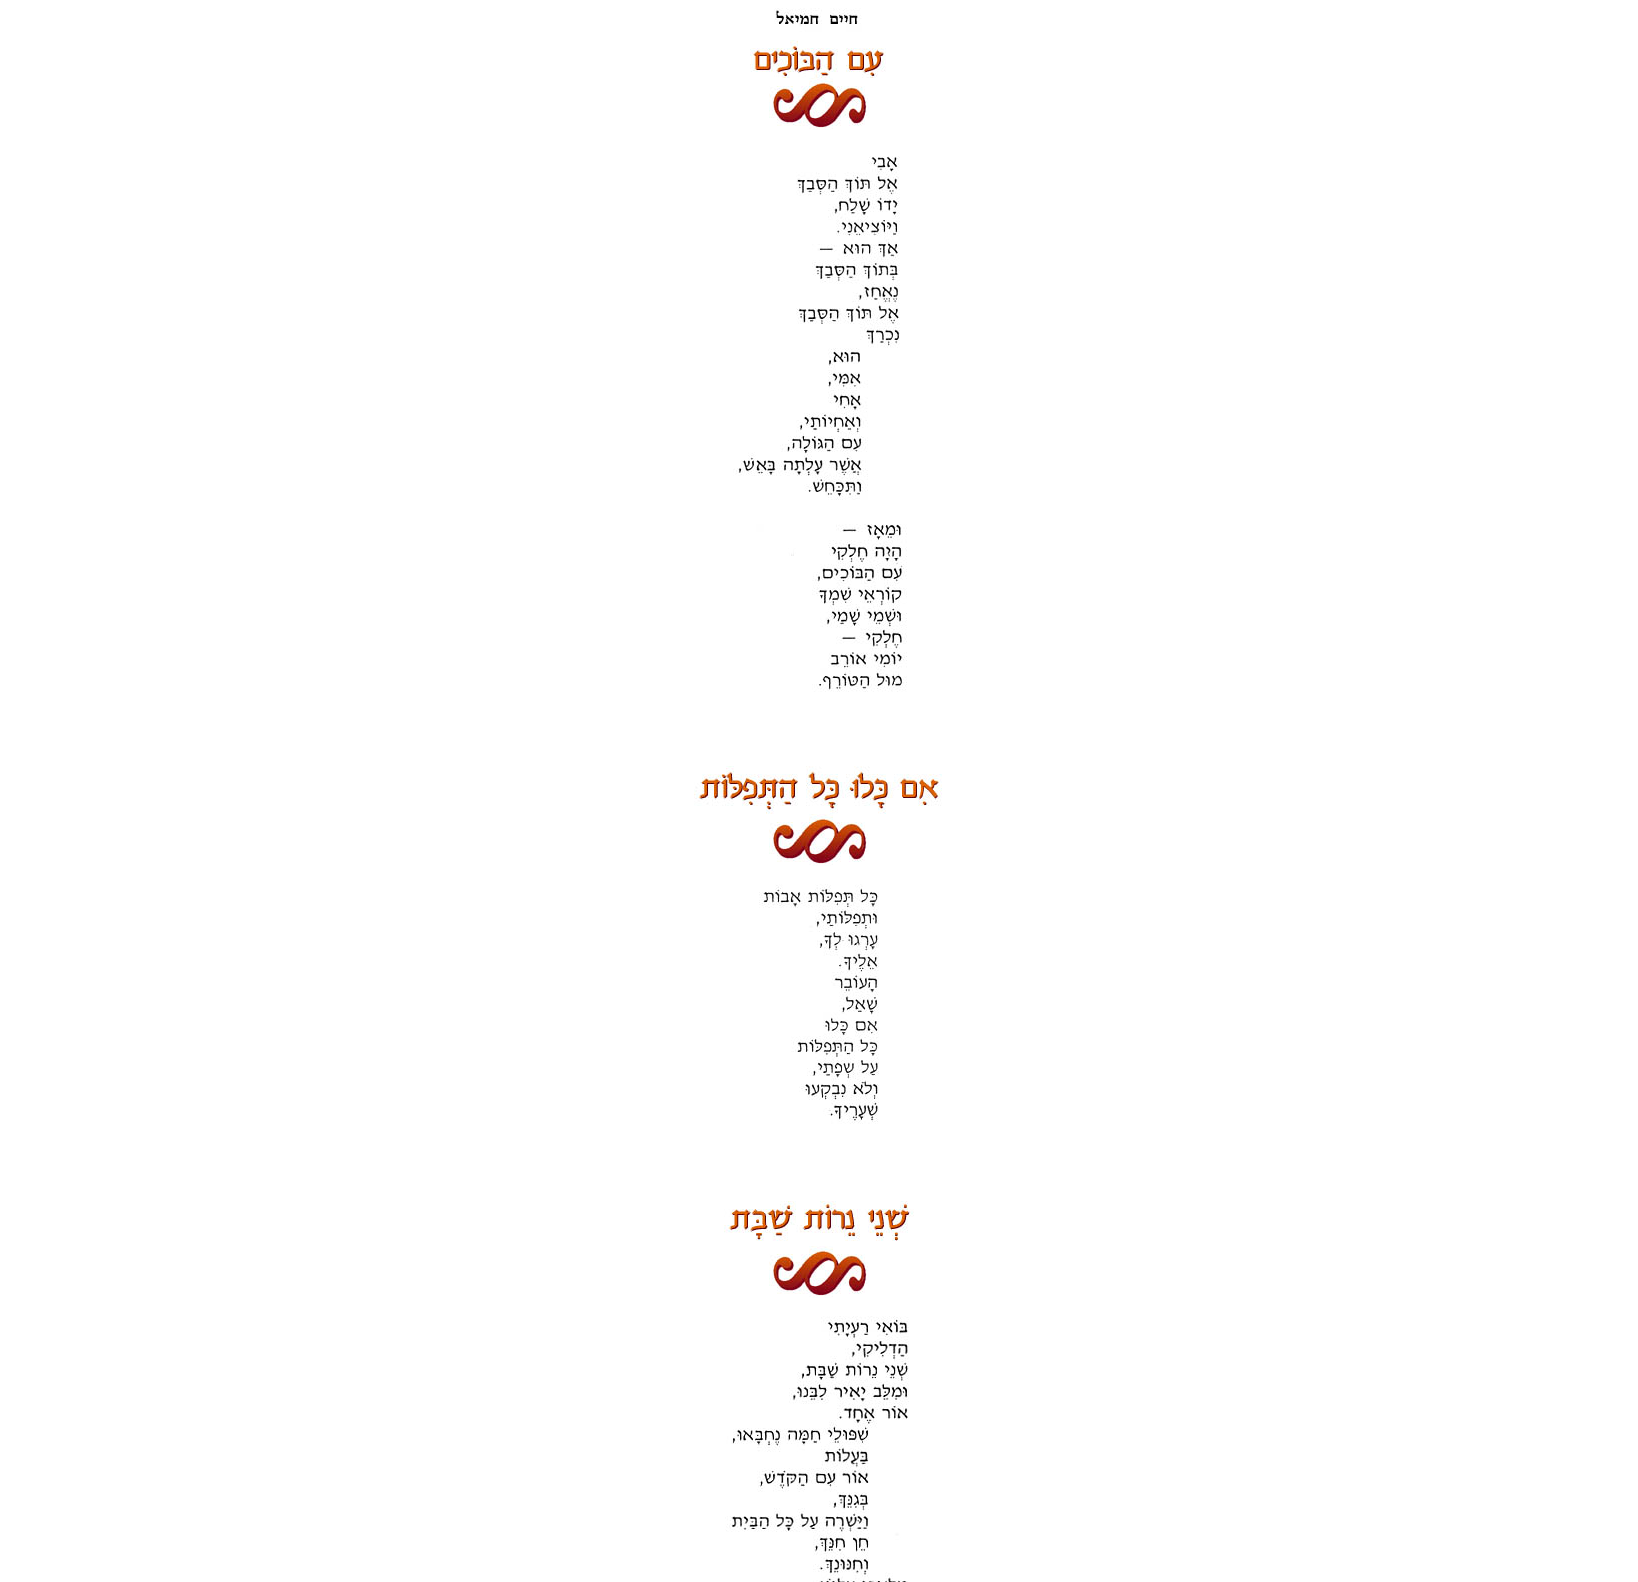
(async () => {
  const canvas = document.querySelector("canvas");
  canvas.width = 1638;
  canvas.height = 1582;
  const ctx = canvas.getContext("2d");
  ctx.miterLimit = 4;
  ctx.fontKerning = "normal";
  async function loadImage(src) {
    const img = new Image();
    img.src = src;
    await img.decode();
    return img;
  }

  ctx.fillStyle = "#ffffff";
  ctx.fillRect(0, 0, 1638, 1582);
  ctx.drawImage(await loadImage("img/1.png"), 750, 8, 136, 70);
  ctx.drawImage(await loadImage("img/2.png"), 769, 78, 100, 52);
  ctx.drawImage(await loadImage("img/3.png"), 733, 156, 174, 536);
  ctx.drawImage(await loadImage("img/4.png"), 694, 766, 248, 48);
  ctx.drawImage(await loadImage("img/2.png"), 769, 814, 100, 52);
  ctx.drawImage(await loadImage("img/5.png"), 759, 884, 120, 240);
  ctx.drawImage(await loadImage("img/6.png"), 724, 1201, 190, 40);
  ctx.drawImage(await loadImage("img/2.png"), 769, 1246, 100, 52);
  ctx.drawImage(await loadImage("img/7.png"), 725, 1316, 184, 266);
})();
